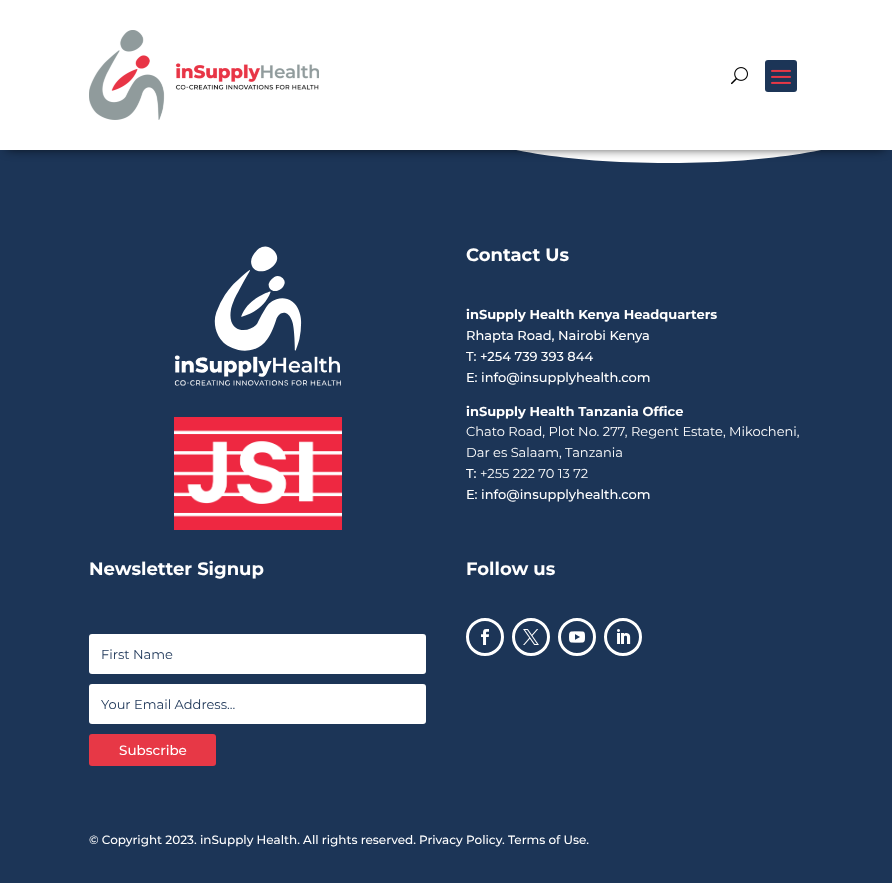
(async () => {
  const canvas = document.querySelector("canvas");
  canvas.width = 892;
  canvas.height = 883;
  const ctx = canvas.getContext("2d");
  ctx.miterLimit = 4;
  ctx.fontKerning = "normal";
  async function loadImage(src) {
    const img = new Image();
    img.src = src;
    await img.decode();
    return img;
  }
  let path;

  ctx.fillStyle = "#1c3557";
  ctx.fillRect(0, 0, 892, 883);
  ctx.fillStyle = "#ffffff";
  path = new Path2D("M223 103C112 103 56 118 0 133V83H892V133C836 148 780 163 669 163C446 163 446 103 223 103Z");
  ctx.fill(path);
  ctx.fillStyle = "rgba(0, 0, 0, 0.75)";
  ctx.filter = "blur(5.5px)";
  ctx.beginPath();
  ctx.rect(7, 13, 878, 136);
  ctx.fill();
  ctx.filter = "none";
  ctx.fillStyle = "#ffffff";
  ctx.fillRect(0, 0, 892, 150);
  ctx.drawImage(await loadImage("img/1.png"), 89, 30, 230, 90);
  ctx.drawImage(await loadImage("img/2.png"), 731, 67, 17, 18);
  ctx.fillStyle = "#1c3557";
  ctx.beginPath();
  ctx.roundRect(765, 60, 32, 32, 3);
  ctx.fill();
  ctx.drawImage(await loadImage("img/3.png"), 771, 69, 20, 15);
  ctx.drawImage(await loadImage("img/4.png"), 174, 246, 167, 140);
  ctx.drawImage(await loadImage("img/5.png"), 174, 417, 168, 113);
  ctx.fillStyle = "#ffffff";
  ctx.beginPath();
  ctx.roundRect(89, 634, 337, 40, 3);
  ctx.fill();
  ctx.beginPath();
  ctx.roundRect(89, 684, 337, 40, 3);
  ctx.fill();
  ctx.fillStyle = "#e73846";
  ctx.beginPath();
  ctx.roundRect(89, 734, 127, 32, 3);
  ctx.fill();
  ctx.beginPath();
  ctx.arc(485, 637, 17.5, 0, Math.PI * 2);
  ctx.strokeStyle = "#ffffff";
  ctx.lineWidth = 3;
  ctx.stroke();
  ctx.drawImage(await loadImage("img/6.png"), 481, 629, 8, 16);
  ctx.beginPath();
  ctx.arc(531, 637, 17.5, 0, Math.PI * 2);
  ctx.stroke();
  ctx.drawImage(await loadImage("img/7.png"), 523, 629, 16, 16);
  ctx.beginPath();
  ctx.arc(577, 637, 17.5, 0, Math.PI * 2);
  ctx.stroke();
  ctx.drawImage(await loadImage("img/8.png"), 569, 631, 16, 12);
  ctx.beginPath();
  ctx.arc(623, 637, 17.5, 0, Math.PI * 2);
  ctx.stroke();
  ctx.drawImage(await loadImage("img/9.png"), 617, 629, 14, 15);
  ctx.font = "bold 18px Montserrat";
  ctx.fillStyle = "#ffffff";
  ctx.fillText("Contact Us", 466, 261);
  ctx.font = "bold 13px Montserrat";
  ctx.fillText("inSupply Health Kenya Headquarters", 466, 319);
  ctx.font = "500 13px Montserrat";
  for (const [text, x, y] of [
    ["Rhapta Road, Nairobi Kenya", 466, 340],
    ["T: +254 739 393 844", 466, 361],
    ["E: info@insupplyhealth.com", 466, 382],
  ]) {
    ctx.fillText(text, x, y);
  }
  ctx.font = "bold 13px Montserrat";
  ctx.fillText("inSupply Health Tanzania Office", 466, 416);
  ctx.font = "13px Montserrat";
  ctx.fillText("Chato Road, Plot No. 277, Regent Estate, Mikocheni,", 466, 436);
  ctx.fillText("Dar es Salaam, Tanzania", 466, 457);
  ctx.font = "500 13px Montserrat";
  ctx.fillText("T:", 466, 478);
  ctx.font = "13px Montserrat";
  ctx.fillText("+255 222 70 13 72", 480, 478);
  ctx.font = "500 13px Montserrat";
  ctx.fillText("E: info@insupplyhealth.com", 466, 499);
  ctx.font = "bold 18px Montserrat";
  ctx.fillText("Newsletter Signup", 89, 575);
  ctx.font = "13px Montserrat";
  ctx.fillStyle = "#1c3557";
  ctx.fillText("First Name", 101, 659);
  ctx.fillText("Your Email Address...", 101, 709);
  ctx.font = "500 13.5px Montserrat";
  ctx.fillStyle = "#ffffff";
  ctx.fillText("Subscribe", 119, 755);
  ctx.font = "bold 18px Montserrat";
  ctx.fillText("Follow us", 466, 575);
  ctx.font = "500 12px Montserrat";
  for (const [text, x, y] of [
    ["© Copyright 2023. inSupply Health. All rights reserved.", 89, 844],
    ["Privacy Policy", 419, 844],
    [". Terms of Use.", 502, 844],
  ]) {
    ctx.fillText(text, x, y);
  }
})();
